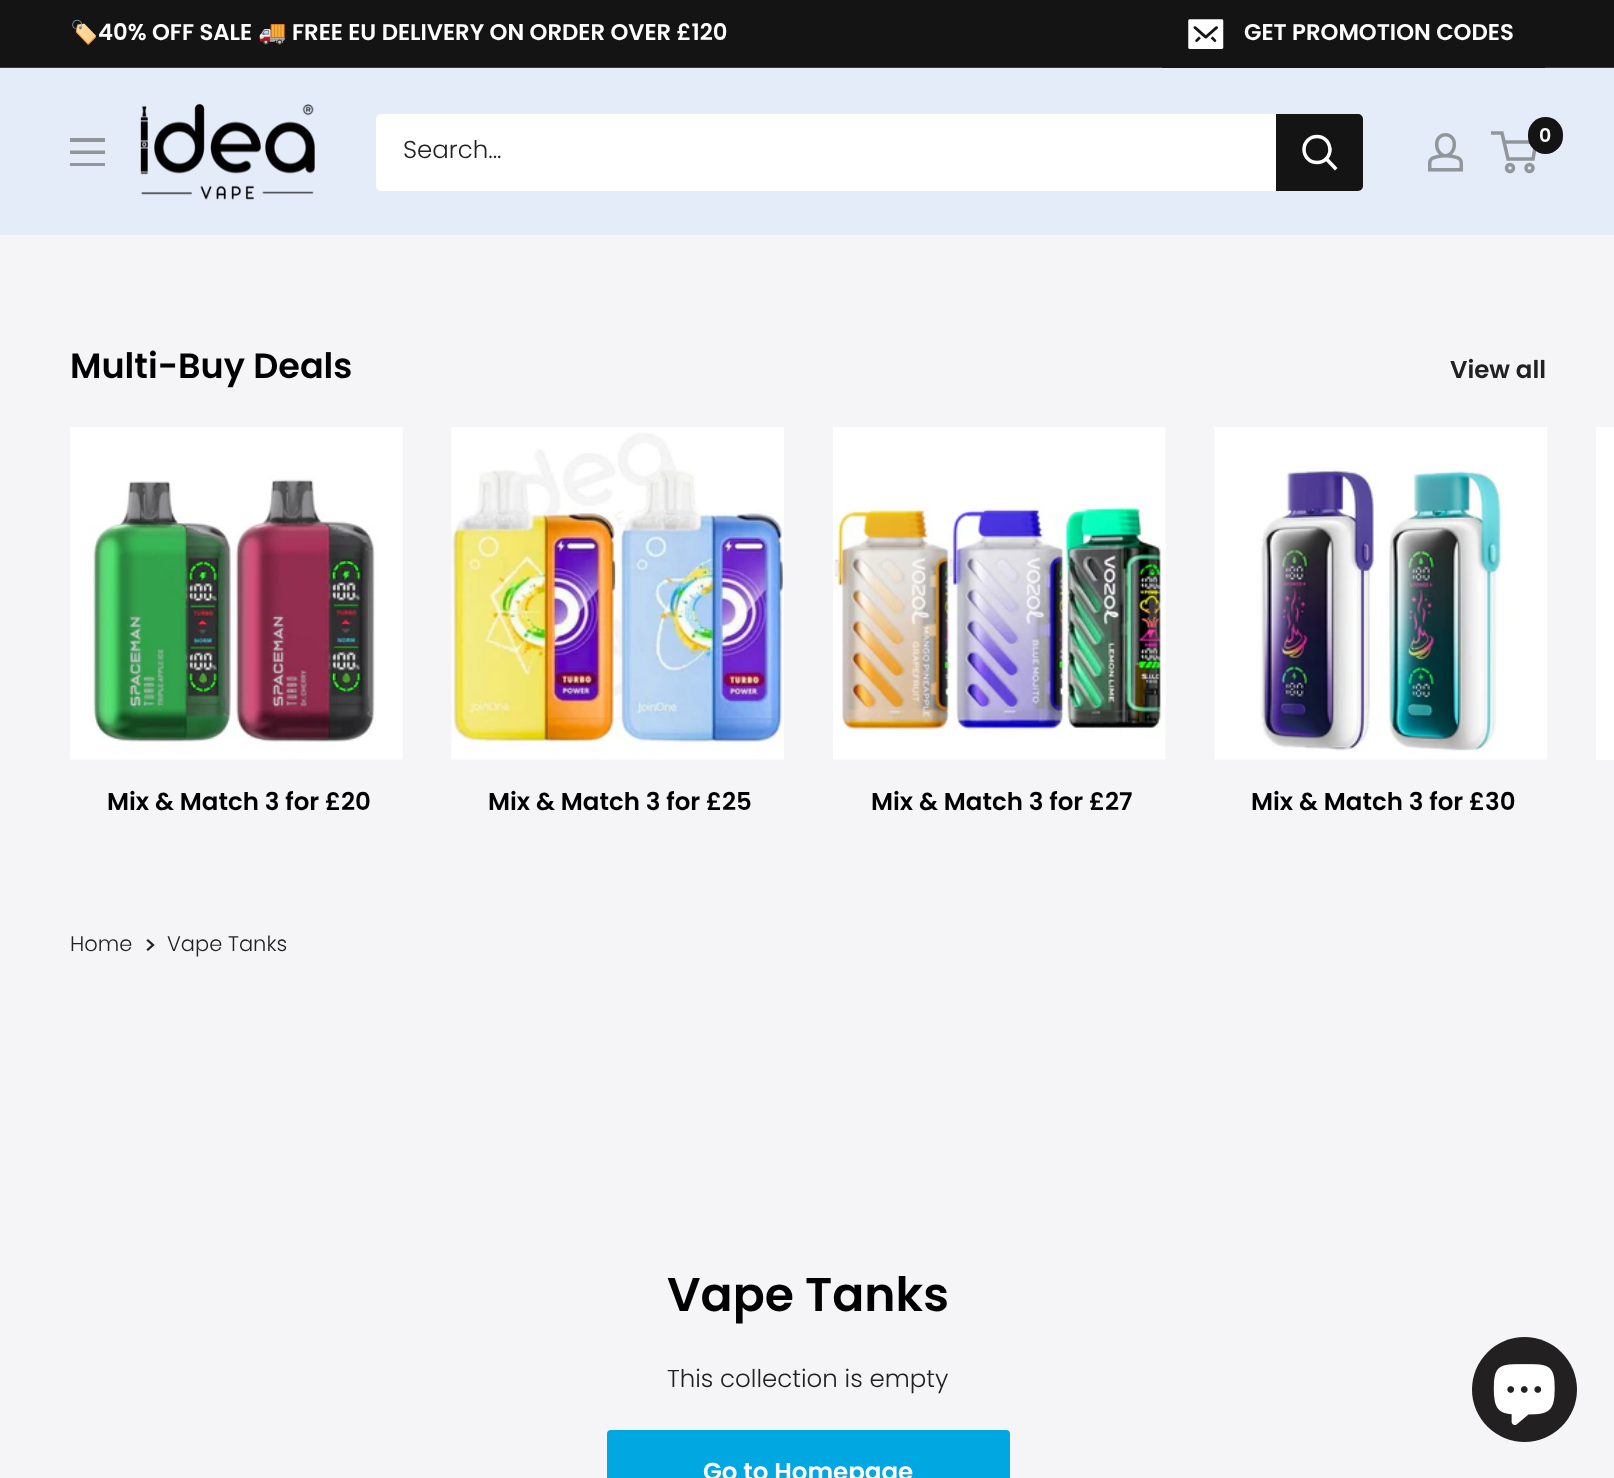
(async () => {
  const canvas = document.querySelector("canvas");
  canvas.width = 1614;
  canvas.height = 1478;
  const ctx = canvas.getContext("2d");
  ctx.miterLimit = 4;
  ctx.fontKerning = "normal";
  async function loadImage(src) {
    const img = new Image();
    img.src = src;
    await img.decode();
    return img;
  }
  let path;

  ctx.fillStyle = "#f5f5f7";
  ctx.fillRect(0, 0, 1614, 1478);
  for (const [x, y, w, h, color] of [
    [0, 0, 1614, 67, "#141414"],
    [0, 67, 1614, 1, "#3a3b3c"],
    [1162, 67, 383, 1, "#141414"],
  ]) {
    ctx.fillStyle = color;
    ctx.fillRect(x, y, w, h);
  }
  ctx.drawImage(await loadImage("img/1.png"), 1188, 19, 36, 30);
  ctx.fillStyle = "#e4ecfa";
  ctx.fillRect(0, 68, 1614, 167);
  ctx.drawImage(await loadImage("img/2.png"), 140, 103, 175, 97);
  ctx.drawImage(await loadImage("img/3.png"), 1428, 133, 35, 39);
  ctx.beginPath();
  ctx.arc(1510, 168, 3.5, 0, Math.PI * 2);
  ctx.strokeStyle = "#91969a";
  ctx.lineWidth = 3.5;
  ctx.stroke();
  ctx.beginPath();
  ctx.arc(1529.5, 168, 3.5, 0, Math.PI * 2);
  ctx.stroke();
  path = new Path2D("M1504 142H1536L1533 159H1508L1502 133H1491");
  ctx.stroke(path);
  ctx.fillStyle = "#141414";
  ctx.beginPath();
  ctx.roundRect(1528, 117, 35, 37, 17.5);
  ctx.fill();
  ctx.fillStyle = "#91969a";
  path = new Path2D("M70 163H105V166H70ZM70 138H105V142H70ZM70 150.5H105V154H70Z");
  ctx.fill(path, "evenodd");
  ctx.fillStyle = "#ffffff";
  ctx.beginPath();
  ctx.roundRect(376, 114, 987, 77, 5);
  ctx.fill();
  ctx.fillStyle = "#141414";
  ctx.beginPath();
  ctx.roundRect(1276, 114, 87, 77, [0, 5, 5, 0]);
  ctx.fill();
  path = new Path2D("M1335 168L1326.5 159");
  ctx.strokeStyle = "#ffffff";
  ctx.lineCap = "square";
  ctx.stroke(path);
  ctx.beginPath();
  ctx.arc(1317, 149.5, 13, 0, Math.PI * 2);
  ctx.stroke();
  ctx.fillStyle = "#ffffff";
  ctx.fillRect(1596, 427, 18, 333);
  ctx.drawImage(await loadImage("img/4.png"), 70, 427, 333, 333);
  ctx.drawImage(await loadImage("img/5.png"), 451, 427, 333, 333);
  ctx.drawImage(await loadImage("img/6.png"), 833, 427, 333, 333);
  ctx.drawImage(await loadImage("img/7.png"), 1214, 427, 333, 333);
  path = new Path2D("M148 940.5L153 945L148 949.5");
  ctx.strokeStyle = "#222021";
  ctx.lineWidth = 2.3;
  ctx.stroke(path);
  ctx.fillStyle = "#00a7e1";
  ctx.beginPath();
  ctx.roundRect(607, 1430, 403, 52, 4);
  ctx.fill();
  ctx.fillStyle = "#222021";
  ctx.beginPath();
  ctx.arc(1524.5, 1389.5, 52.5, 0, Math.PI * 2);
  ctx.fill();
  ctx.drawImage(await loadImage("img/8.png"), 1493, 1364, 62, 61);
  ctx.font = "bold 22.75px Noto Color Emoji";
  ctx.fillStyle = "#ffffff";
  ctx.fillText("🏷️", 70, 40);
  ctx.font = "600 22.75px Poppins";
  ctx.fillText("40% OFF SALE", 98, 40);
  ctx.font = "bold 22.75px Noto Color Emoji";
  ctx.fillText("🚚", 258, 40);
  ctx.font = "600 22.75px Poppins";
  ctx.fillText("FREE EU DELIVERY ON ORDER OVER £120", 292, 40);
  ctx.fillText("GET PROMOTION CODES", 1244, 40);
  ctx.font = "600 19px Poppins";
  ctx.fillText("0", 1539, 142);
  ctx.font = "300 24.5px Poppins";
  ctx.fillStyle = "#222021";
  ctx.fillText("Search...", 403, 158);
  ctx.font = "600 35px Poppins";
  ctx.fillStyle = "#000000";
  ctx.fillText("Multi-Buy Deals", 70, 378);
  ctx.font = "600 24.5px Poppins";
  ctx.fillStyle = "#222021";
  ctx.fillText("View all", 1450, 378);
  ctx.fillStyle = "#000000";
  for (const [text, x, y] of [
    ["Mix & Match 3 for £20", 107, 810],
    ["Mix & Match 3 for £25", 488, 810],
    ["Mix & Match 3 for £27", 871, 810],
    ["Mix & Match 3 for £30", 1251, 810],
  ]) {
    ctx.fillText(text, x, y);
  }
  ctx.font = "300 21px Poppins";
  ctx.fillStyle = "#222021";
  ctx.fillText("Home", 70, 951);
  ctx.fillText("Vape Tanks", 167, 951);
  ctx.font = "600 47.25px Poppins";
  ctx.fillStyle = "#000000";
  ctx.fillText("Vape Tanks", 667, 1311);
  ctx.font = "300 24.5px Poppins";
  ctx.fillStyle = "#222021";
  ctx.fillText("This collection is empty", 667, 1387);
  ctx.font = "600 24.5px Poppins";
  ctx.fillStyle = "#ffffff";
  ctx.fillText("Go to Homepage", 703, 1480);
})();
